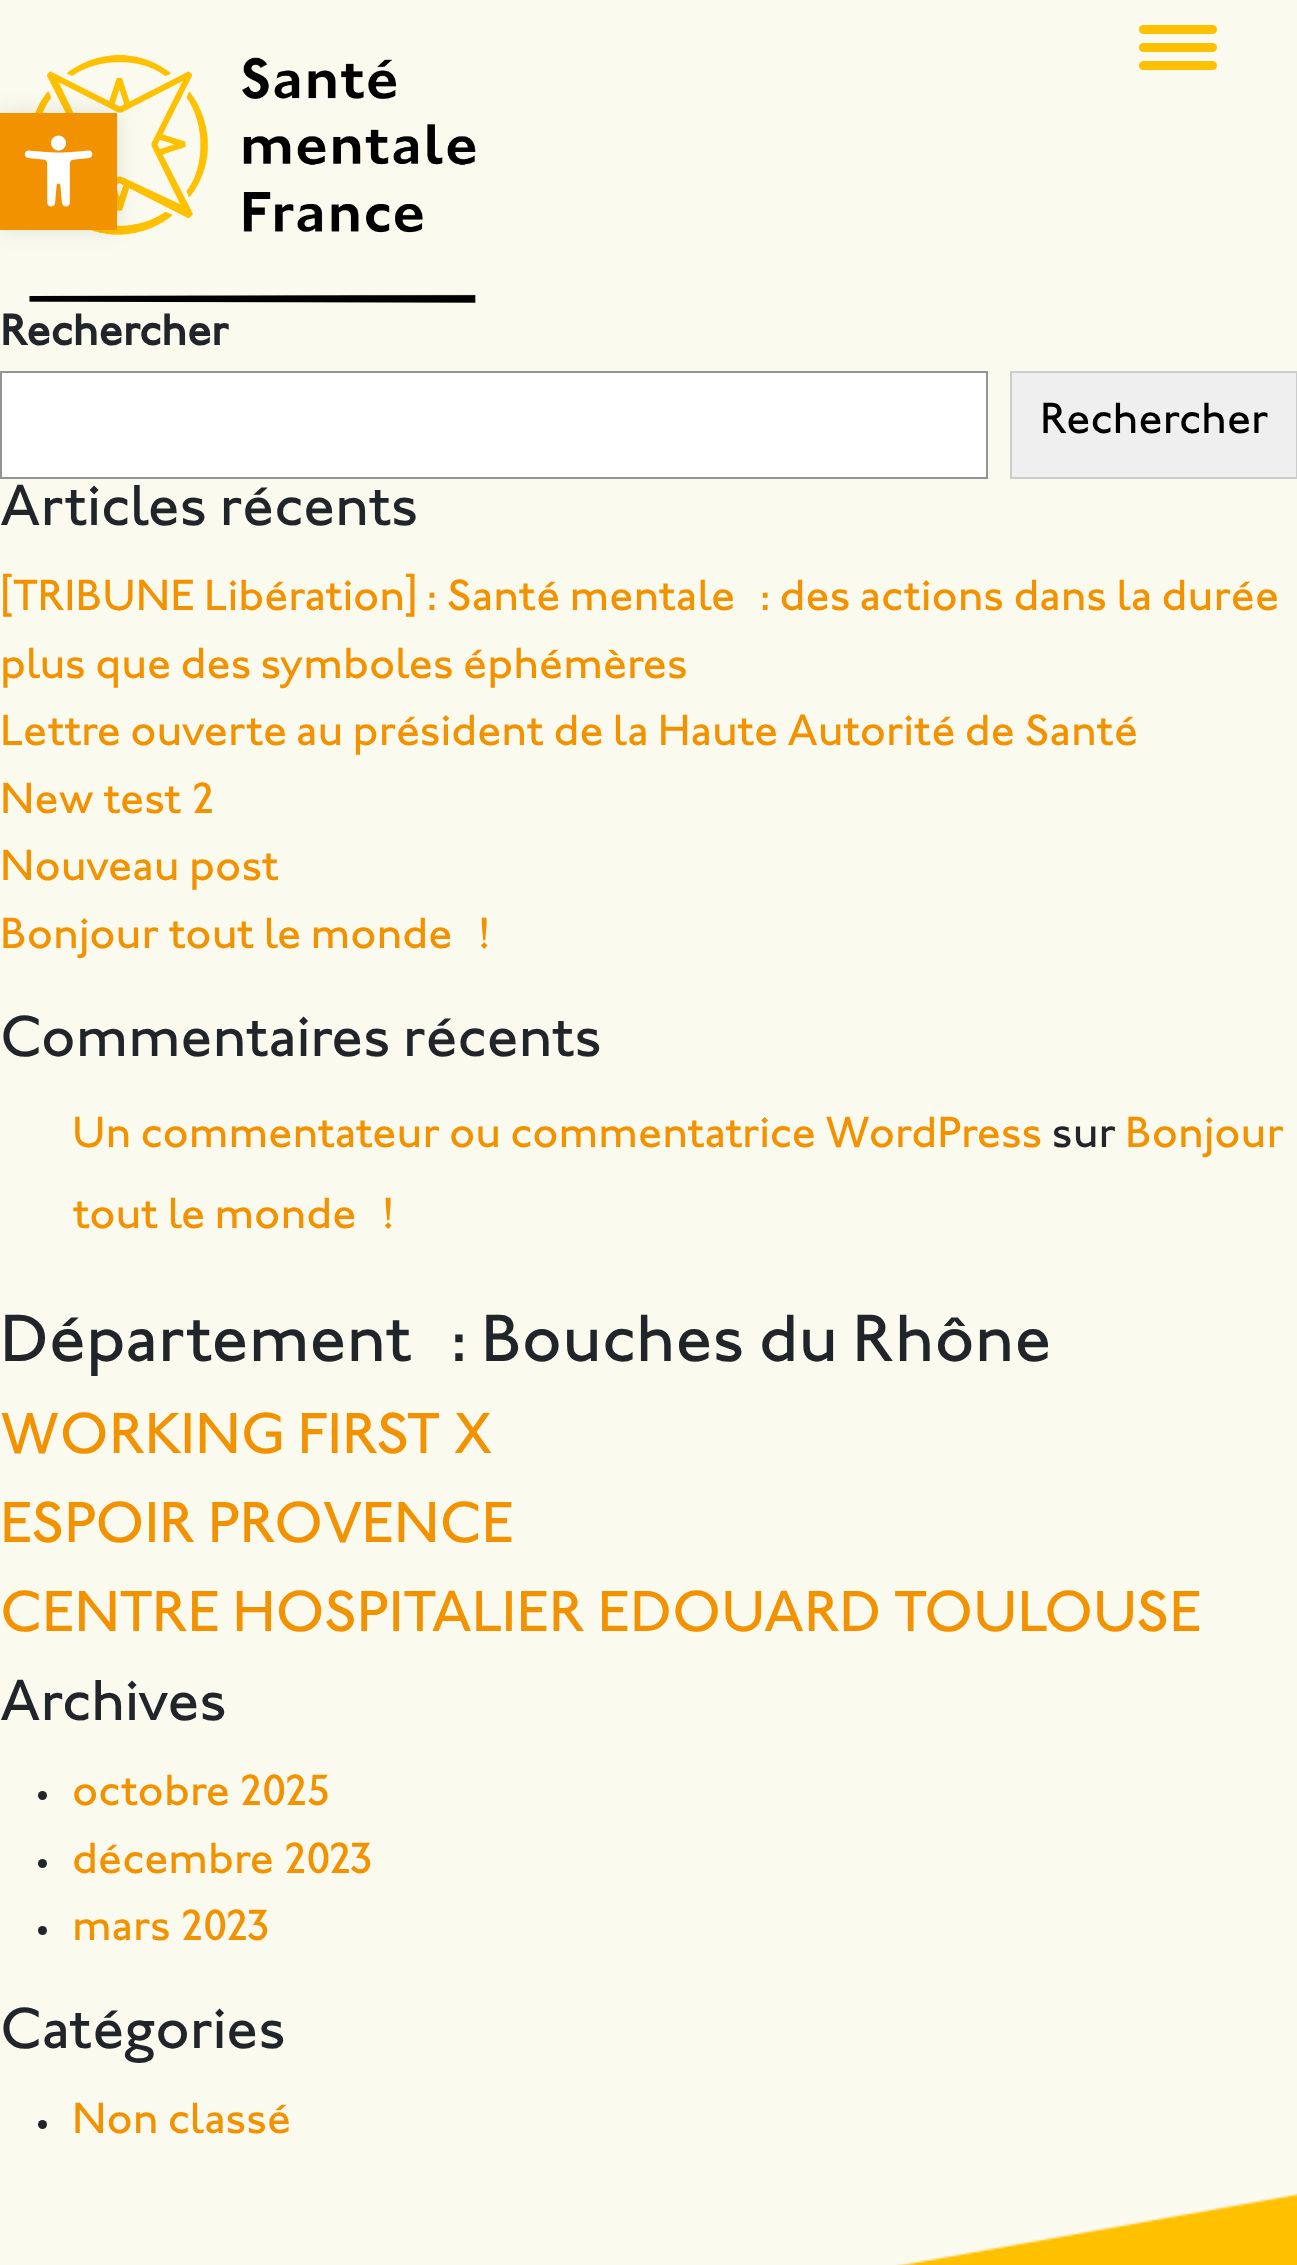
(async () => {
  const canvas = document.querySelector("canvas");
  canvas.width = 1297;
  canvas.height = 2265;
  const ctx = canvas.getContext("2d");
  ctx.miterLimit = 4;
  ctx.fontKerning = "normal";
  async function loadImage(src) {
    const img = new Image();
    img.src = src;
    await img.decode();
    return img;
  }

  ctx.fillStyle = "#fafaef";
  ctx.fillRect(0, 0, 1297, 2265);
  ctx.drawImage(await loadImage("img/2.png"), 29, 54, 447, 249);
  ctx.fillStyle = "rgba(0, 0, 0, 0.1)";
  ctx.filter = "blur(11px)";
  ctx.beginPath();
  ctx.rect(0, 113, 117, 117);
  ctx.fill();
  ctx.filter = "none";
  ctx.fillStyle = "#f39200";
  ctx.fillRect(0, 113, 117, 117);
  ctx.drawImage(await loadImage("img/1.png"), 24, 135, 69, 72);
  ctx.fillStyle = "#ffc000";
  ctx.beginPath();
  ctx.roundRect(1139, 25, 78, 9, 4.5);
  ctx.fill();
  ctx.beginPath();
  ctx.roundRect(1139, 43, 78, 9, 4.5);
  ctx.fill();
  ctx.beginPath();
  ctx.roundRect(1139, 61, 78, 9, 4.5);
  ctx.fill();
  ctx.fillStyle = "#ffffff";
  ctx.beginPath();
  ctx.rect(1, 372, 986, 106);
  ctx.fill();
  ctx.strokeStyle = "#949494";
  ctx.lineWidth = 2;
  ctx.stroke();
  ctx.fillStyle = "#efefef";
  ctx.beginPath();
  ctx.rect(1011, 372, 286, 106);
  ctx.fill();
  ctx.strokeStyle = "#cccccc";
  ctx.stroke();
  ctx.fillStyle = "#212529";
  ctx.beginPath();
  ctx.arc(42.5, 1795.5, 4.5, 0, Math.PI * 2);
  ctx.fill();
  ctx.beginPath();
  ctx.arc(42.5, 1863.5, 4.5, 0, Math.PI * 2);
  ctx.fill();
  ctx.beginPath();
  ctx.arc(42.5, 1930.5, 4.5, 0, Math.PI * 2);
  ctx.fill();
  ctx.beginPath();
  ctx.arc(42.5, 2124.5, 4.5, 0, Math.PI * 2);
  ctx.fill();
  ctx.drawImage(await loadImage("img/3.png"), 896, 2193, 401, 72);
  ctx.font = "bold 45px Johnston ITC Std";
  ctx.fillText("Rechercher", 0, 345);
  ctx.font = "500 45px Johnston ITC Std";
  ctx.fillStyle = "#000000";
  ctx.fillText("Rechercher", 1040, 433);
  ctx.font = "500 59.4px Johnston ITC Std";
  ctx.fillStyle = "#212529";
  ctx.fillText("Articles récents", 0, 525);
  ctx.font = "500 45px Johnston ITC Std";
  ctx.fillStyle = "#f39200";
  for (const [text, x, y] of [
    ["[TRIBUNE Libération] : Santé mentale", 0, 610],
    [": des actions dans la durée", 760, 610],
    ["plus que des symboles éphémères", 0, 678],
    ["Lettre ouverte au président de la Haute Autorité de Santé", 0, 745],
    ["New test 2", 0, 813],
    ["Nouveau post", 0, 880],
    ["Bonjour tout le monde", 0, 948],
    ["!", 478, 948],
  ]) {
    ctx.fillText(text, x, y);
  }
  ctx.font = "500 59.4px Johnston ITC Std";
  ctx.fillStyle = "#212529";
  ctx.fillText("Commentaires récents", 0, 1056);
  ctx.font = "500 45px Johnston ITC Std";
  ctx.fillStyle = "#f39200";
  ctx.fillText("Un commentateur ou commentatrice WordPress", 72, 1147);
  ctx.fillStyle = "#212529";
  ctx.fillText("sur", 1052, 1147);
  ctx.fillStyle = "#f39200";
  ctx.fillText("Bonjour", 1125, 1147);
  ctx.fillText("tout le monde", 72, 1228);
  ctx.fillText("!", 382, 1228);
  ctx.font = "500 69px Johnston ITC Std";
  ctx.fillStyle = "#212529";
  ctx.fillText("Département", 0, 1361);
  ctx.fillText(": Bouches du Rhône", 451, 1361);
  ctx.font = "500 59.4px Johnston ITC Std";
  ctx.fillStyle = "#f39200";
  for (const [text, x, y] of [
    ["WORKING FIRST X", 0, 1453],
    ["ESPOIR PROVENCE", 0, 1542],
    ["CENTRE HOSPITALIER EDOUARD TOULOUSE", 0, 1631],
  ]) {
    ctx.fillText(text, x, y);
  }
  ctx.fillStyle = "#212529";
  ctx.fillText("Archives", 0, 1720);
  ctx.font = "500 45px Johnston ITC Std";
  ctx.fillStyle = "#f39200";
  for (const [text, x, y] of [
    ["octobre 2025", 72, 1805],
    ["décembre 2023", 72, 1873],
    ["mars 2023", 72, 1940],
  ]) {
    ctx.fillText(text, x, y);
  }
  ctx.font = "500 59.4px Johnston ITC Std";
  ctx.fillStyle = "#212529";
  ctx.fillText("Catégories", 0, 2048);
  ctx.font = "500 45px Johnston ITC Std";
  ctx.fillStyle = "#f39200";
  ctx.fillText("Non classé", 72, 2133);
})();
